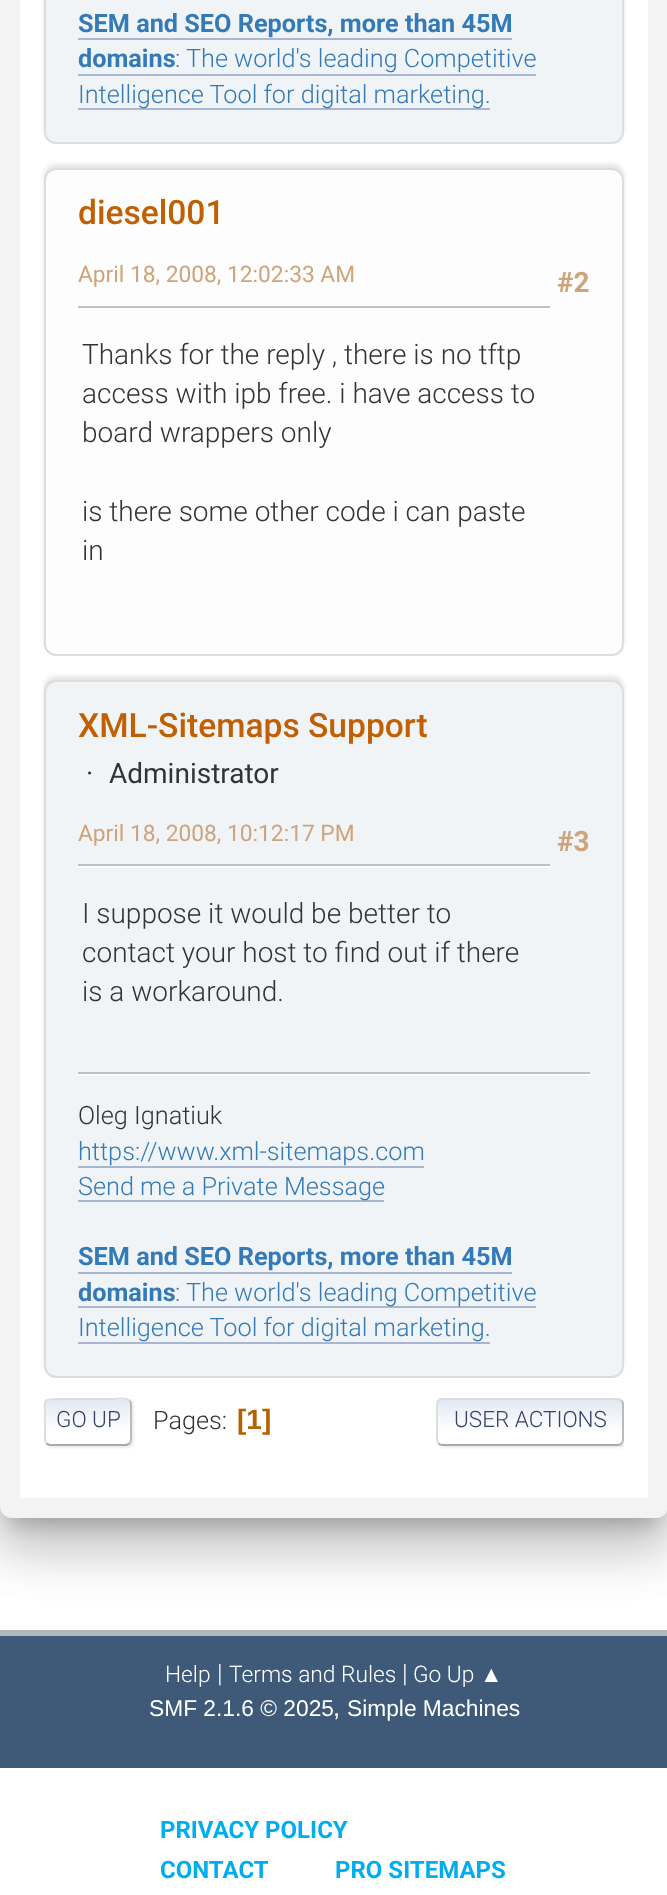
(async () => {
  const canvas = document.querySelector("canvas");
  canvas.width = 667;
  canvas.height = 1895;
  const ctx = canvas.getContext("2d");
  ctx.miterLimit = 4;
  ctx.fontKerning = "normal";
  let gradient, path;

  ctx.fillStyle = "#ffffff";
  ctx.fillRect(0, 0, 667, 1895);
  ctx.fillStyle = "rgba(0, 0, 0, 0.2)";
  ctx.filter = "blur(10px)";
  ctx.beginPath();
  ctx.roundRect(10, -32, 648, 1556, 2);
  ctx.fill();
  ctx.filter = "none";
  ctx.fillStyle = "#b2b6bd";
  ctx.fillRect(0, 1630, 667, 6);
  ctx.fillStyle = "rgba(0, 0, 0, 0.12)";
  ctx.filter = "blur(30px)";
  ctx.beginPath();
  ctx.roundRect(-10, -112, 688, 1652, 22);
  ctx.fill();
  ctx.filter = "none";
  ctx.fillStyle = "rgba(0, 0, 0, 0.14)";
  ctx.filter = "blur(24px)";
  ctx.beginPath();
  ctx.roundRect(-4, -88, 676, 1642, 16);
  ctx.fill();
  ctx.filter = "none";
  ctx.fillStyle = "#f3f3f3";
  ctx.beginPath();
  ctx.roundRect(0, -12, 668, 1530, 12);
  ctx.fill();
  ctx.fillStyle = "#ffffff";
  ctx.fillRect(20, 0, 628, 1498);
  ctx.fillStyle = "rgba(0, 0, 0, 0.1)";
  ctx.filter = "blur(2px)";
  ctx.beginPath();
  ctx.roundRect(44, -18, 580, 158, 12);
  ctx.fill();
  ctx.filter = "none";
  ctx.fillStyle = "#f0f4f7";
  ctx.beginPath();
  ctx.roundRect(45, -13, 578, 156, 11);
  ctx.fill();
  ctx.strokeStyle = "#dddddd";
  ctx.lineWidth = 2;
  ctx.stroke();
  for (const [x, y, w, h, color] of [
    [78, 38, 434, 2, "#a8b6cf"],
    [78, 74, 458, 2, "#a8b6cf"],
    [78, 108, 412, 2, "#a8b6cf"],
  ]) {
    ctx.fillStyle = color;
    ctx.fillRect(x, y, w, h);
  }
  ctx.fillStyle = "rgba(0, 0, 0, 0.1)";
  ctx.filter = "blur(2px)";
  ctx.beginPath();
  ctx.roundRect(44, 164, 580, 488, 12);
  ctx.fill();
  ctx.filter = "none";
  ctx.fillStyle = "#fdfdfd";
  ctx.beginPath();
  ctx.roundRect(45, 169, 578, 486, 11);
  ctx.fill();
  ctx.stroke();
  ctx.fillStyle = "#bfbfbf";
  ctx.fillRect(78, 306, 472, 2);
  ctx.fillStyle = "rgba(0, 0, 0, 0.1)";
  ctx.filter = "blur(2px)";
  ctx.beginPath();
  ctx.roundRect(44, 676, 580, 698, 12);
  ctx.fill();
  ctx.filter = "none";
  ctx.fillStyle = "#f0f4f7";
  ctx.beginPath();
  ctx.roundRect(45, 681, 578, 696, 11);
  ctx.fill();
  ctx.stroke();
  for (const [x, y, w, h, color] of [
    [78, 866, 472, 2, "#ffffff"],
    [78, 864, 472, 2, "#bfbfbf"],
    [78, 1074, 512, 2, "#ffffff"],
    [78, 1072, 512, 2, "#bfbfbf"],
    [78, 1166, 346, 2, "#a8b6cf"],
    [78, 1200, 306, 2, "#a8b6cf"],
    [78, 1272, 434, 2, "#a8b6cf"],
    [78, 1306, 458, 2, "#a8b6cf"],
    [78, 1342, 412, 2, "#a8b6cf"],
  ]) {
    ctx.fillStyle = color;
    ctx.fillRect(x, y, w, h);
  }
  ctx.fillStyle = "rgba(221, 221, 221, 0.57)";
  ctx.filter = "blur(1px)";
  ctx.beginPath();
  ctx.roundRect(46, 1400, 88, 48, 6);
  ctx.fill();
  ctx.filter = "none";
  ctx.fillStyle = "#ffffff";
  ctx.beginPath();
  ctx.roundRect(44, 1398, 88, 48, 6);
  ctx.fill();
  ctx.save();
  ctx.beginPath();
  ctx.roundRect(44, 1398, 88, 48, 6);
  ctx.clip();
  gradient = ctx.createLinearGradient(88, 1400, 88, 1444);
  gradient.addColorStop(0, "#e2e9f3");
  gradient.addColorStop(0.7, "#ffffff");
  ctx.fillStyle = gradient;
  ctx.fillRect(44, 1400, 88, 44);
  gradient = ctx.createLinearGradient(88, 1444, 88, 1488);
  gradient.addColorStop(0, "#e2e9f3");
  gradient.addColorStop(0.7, "#ffffff");
  ctx.fillStyle = gradient;
  ctx.fillRect(44, 1444, 88, 2);
  ctx.restore();
  path = new Path2D("M129.5 1400.5C130.5 1401.5 131 1402.5 131 1404V1440C131 1441.5 130.5 1442.5 129.5 1443.5");
  ctx.strokeStyle = "#bbbbbb";
  ctx.stroke(path);
  path = new Path2D("M129.5 1443.5L126.5 1445H49.5L46.5 1443.5");
  ctx.strokeStyle = "#aaaaaa";
  ctx.stroke(path);
  ctx.save();
  ctx.beginPath();
  ctx.rect(44, 1388, 580, 68);
  ctx.clip();
  path = new Path2D("M46.5 1443.5C44 1441 45 1436.5 45 1434V1422C45 1398 40.5 1399 62.5 1399H113.5C114.5 1399 126 1397 129.5 1400.5");
  ctx.strokeStyle = "#dddddd";
  ctx.stroke(path);
  ctx.restore();
  ctx.save();
  ctx.beginPath();
  ctx.rect(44, 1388, 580, 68);
  ctx.clip();
  ctx.fillStyle = "rgba(221, 221, 221, 0.57)";
  ctx.filter = "blur(1px)";
  ctx.beginPath();
  ctx.roundRect(438, 1400, 188, 48, 6);
  ctx.fill();
  ctx.filter = "none";
  ctx.restore();
  ctx.beginPath();
  ctx.roundRect(436, 1398, 188, 48, 6);
  ctx.fill();
  ctx.save();
  ctx.beginPath();
  ctx.roundRect(436, 1398, 188, 48, 6);
  ctx.clip();
  gradient = ctx.createLinearGradient(530, 1400, 530, 1444);
  gradient.addColorStop(0, "#e2e9f3");
  gradient.addColorStop(0.7, "#ffffff");
  ctx.fillStyle = gradient;
  ctx.fillRect(436, 1400, 188, 44);
  ctx.restore();
  path = new Path2D("M621.5 1400.5C622.5 1401.5 623 1402.5 623 1404V1440C623 1441.5 622.5 1442.5 621.5 1443.5");
  ctx.strokeStyle = "#bbbbbb";
  ctx.stroke(path);
  path = new Path2D("M621.5 1443.5C620.5 1444.5 619.5 1445 618 1445H442C440.5 1445 439.5 1444.5 438.5 1443.5");
  ctx.strokeStyle = "#aaaaaa";
  ctx.stroke(path);
  path = new Path2D("M438.5 1443.5C436 1441 437 1436.5 437 1434V1410C437 1406 436 1399 442 1399H618.5L621.5 1400.5");
  ctx.strokeStyle = "#dddddd";
  ctx.stroke(path);
  ctx.fillStyle = "#3e5a78";
  ctx.fillRect(0, 1636, 667, 132);
  ctx.font = "bold 25.25px Roboto";
  ctx.fillStyle = "#337ab7";
  ctx.fillText("SEM and SEO Reports, more than 45M", 78, 32);
  ctx.fillText("domains", 78, 67);
  ctx.font = "300 25.25px Roboto";
  ctx.fillText(": The world's leading Competitive", 175, 67);
  ctx.fillText("Intelligence Tool for digital marketing.", 78, 103);
  ctx.font = "500 33.6px Roboto";
  ctx.fillStyle = "#c06002";
  ctx.fillText("diesel001", 78, 224);
  ctx.font = "22.75px Roboto";
  ctx.fillStyle = "#cda47b";
  ctx.fillText("April 18, 2008, 12:02:33 AM", 78, 282);
  ctx.font = "bold 28px Roboto";
  ctx.fillText("#2", 557, 292);
  ctx.font = "300 28px Roboto";
  ctx.fillStyle = "#333333";
  for (const [text, x, y] of [
    ["Thanks for the reply , there is no tftp", 82, 364],
    ["access with ipb free. i have access to", 82, 403],
    ["board wrappers only", 82, 442],
    ["is there some other code i can paste", 82, 521],
    ["in", 82, 560],
  ]) {
    ctx.fillText(text, x, y);
  }
  ctx.font = "500 33.6px Roboto";
  ctx.fillStyle = "#c06002";
  ctx.fillText("XML-Sitemaps Support", 78, 737);
  ctx.font = "28px Roboto";
  ctx.fillStyle = "#333333";
  ctx.fillText("·", 86, 783);
  ctx.fillText("Administrator", 109, 783);
  ctx.font = "22.75px Roboto";
  ctx.fillStyle = "#cda47b";
  ctx.fillText("April 18, 2008, 10:12:17 PM", 78, 841);
  ctx.font = "bold 28px Roboto";
  ctx.fillText("#3", 557, 851);
  ctx.font = "300 28px Roboto";
  ctx.fillStyle = "#333333";
  for (const [text, x, y] of [
    ["I suppose it would be better to", 82, 923],
    ["contact your host to find out if there", 82, 962],
    ["is a workaround.", 82, 1001],
  ]) {
    ctx.fillText(text, x, y);
  }
  ctx.font = "300 25.25px Roboto";
  ctx.fillText("Oleg Ignatiuk", 78, 1124);
  ctx.fillStyle = "#337ab7";
  ctx.fillText("https://www.xml-sitemaps.com", 78, 1160);
  ctx.fillText("Send me a Private Message", 78, 1195);
  ctx.font = "bold 25.25px Roboto";
  ctx.fillText("SEM and SEO Reports, more than 45M", 78, 1265);
  ctx.fillText("domains", 78, 1301);
  ctx.font = "300 25.25px Roboto";
  ctx.fillText(": The world's leading Competitive", 175, 1301);
  ctx.fillText("Intelligence Tool for digital marketing.", 78, 1336);
  ctx.font = "300 22.5px Roboto";
  ctx.fillStyle = "#334466";
  ctx.fillText("GO UP", 56, 1427);
  ctx.font = "300 25.25px Roboto";
  ctx.fillStyle = "#333333";
  ctx.fillText("Pages:", 153, 1429);
  ctx.font = "bold 28px Liberation Sans";
  ctx.fillStyle = "#b46100";
  ctx.fillText("[1]", 237, 1429);
  ctx.font = "300 22.5px Roboto";
  ctx.fillStyle = "#334466";
  ctx.fillText("USER ACTIONS", 454, 1427);
  ctx.font = "300 22.75px Roboto";
  ctx.fillStyle = "#ffffff";
  ctx.fillText("Help", 165, 1682);
  ctx.font = "300 25.25px Roboto";
  ctx.fillText("|", 217, 1682);
  ctx.font = "300 22.75px Roboto";
  ctx.fillText("Terms and Rules", 229, 1682);
  ctx.font = "300 25.25px Roboto";
  ctx.fillText("|", 402, 1682);
  ctx.font = "300 22.75px Roboto";
  ctx.fillText("Go Up", 413, 1682);
  ctx.font = "22.75px Liberation Sans";
  ctx.fillText("▲", 480, 1682);
  ctx.fillText("SMF 2.1.6 © 2025", 149, 1716);
  ctx.font = "25.25px Liberation Sans";
  ctx.fillText(",", 333, 1716);
  ctx.font = "22.75px Liberation Sans";
  ctx.fillText("Simple Machines", 347, 1716);
  ctx.font = "bold 24px Roboto";
  ctx.fillStyle = "#00aeef";
  for (const [text, x, y] of [
    ["PRIVACY POLICY", 160, 1838],
    ["CONTACT", 160, 1878],
    ["PRO SITEMAPS", 335, 1878],
  ]) {
    ctx.fillText(text, x, y);
  }
})();
